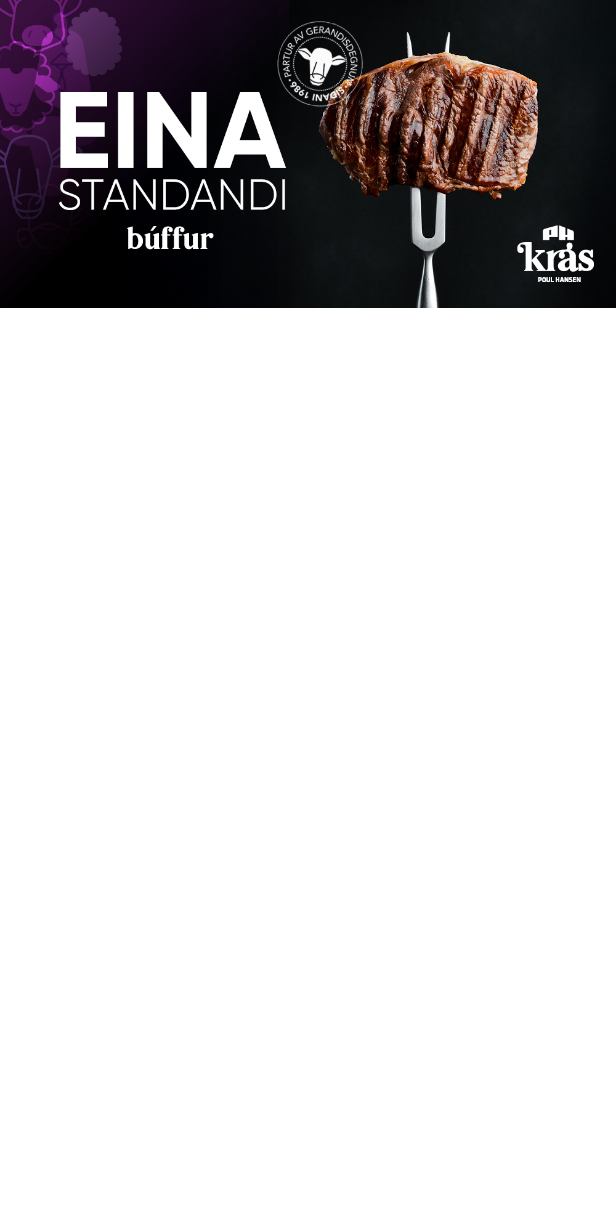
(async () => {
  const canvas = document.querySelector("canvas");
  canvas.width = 616;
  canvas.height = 1206;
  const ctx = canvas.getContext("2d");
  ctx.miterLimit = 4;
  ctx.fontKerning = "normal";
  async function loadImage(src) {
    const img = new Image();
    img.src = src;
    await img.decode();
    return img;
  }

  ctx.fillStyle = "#ffffff";
  ctx.fillRect(0, 0, 616, 1206);
  ctx.drawImage(await loadImage("img/1.png"), 0, 0, 616, 308);
})();
